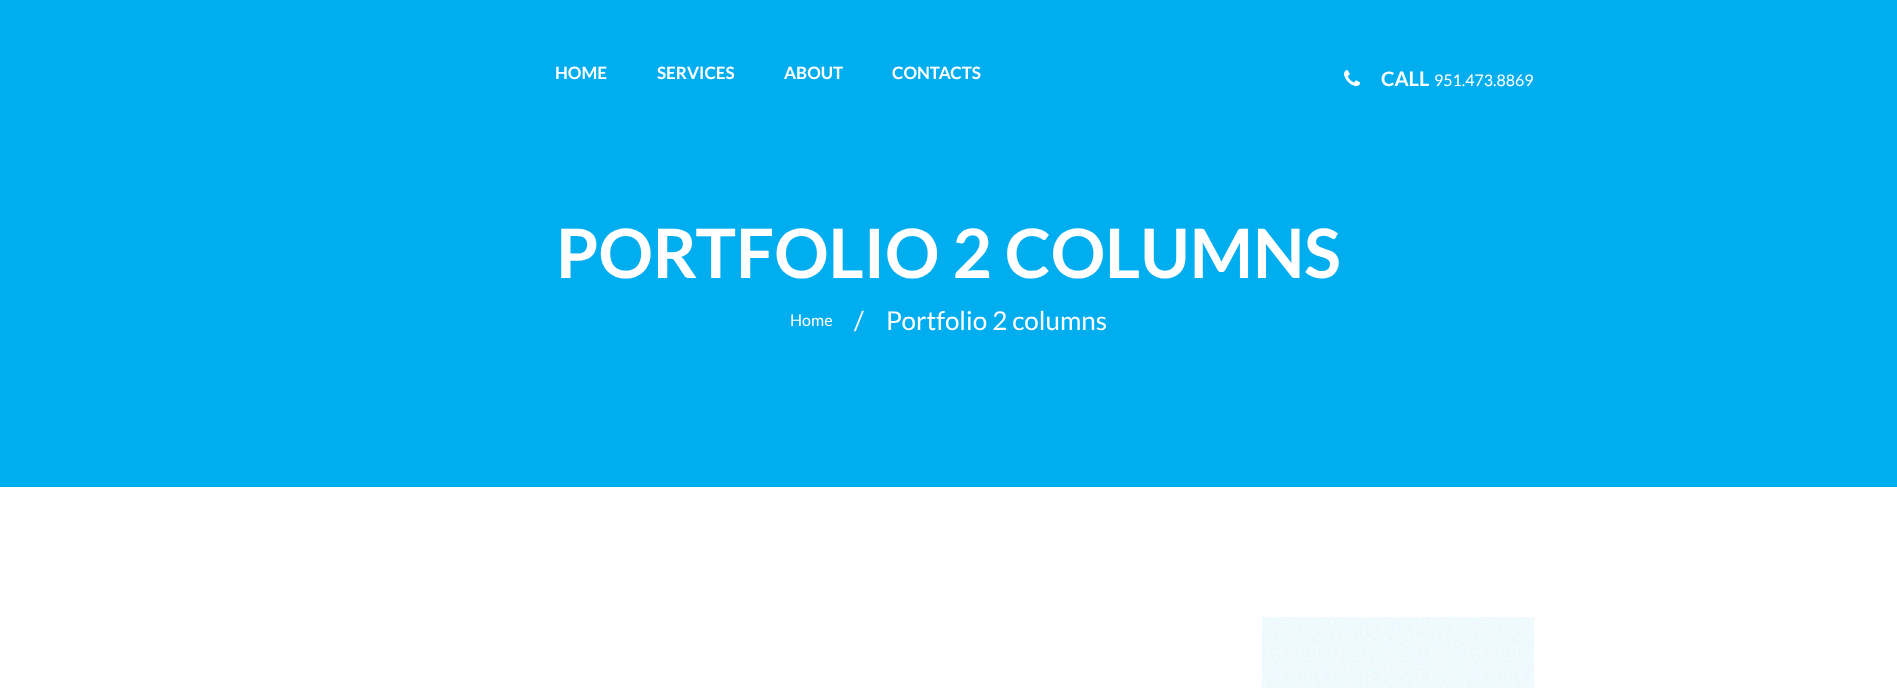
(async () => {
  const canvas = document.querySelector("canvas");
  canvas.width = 1897;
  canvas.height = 688;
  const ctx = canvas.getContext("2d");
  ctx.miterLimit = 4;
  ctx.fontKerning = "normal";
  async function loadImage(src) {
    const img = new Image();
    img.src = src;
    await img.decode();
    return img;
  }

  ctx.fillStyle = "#ffffff";
  ctx.fillRect(0, 0, 1897, 688);
  ctx.fillStyle = "#00aeef";
  ctx.fillRect(0, 0, 1897, 487);
  ctx.drawImage(await loadImage("img/1.png"), 1344, 70, 16, 17);
  ctx.drawImage(await loadImage("img/2.png"), 1262, 617, 272, 71);
  ctx.font = "bold 17px Lato";
  ctx.fillStyle = "#ffffff";
  for (const [text, x, y] of [
    ["HOME", 555, 79],
    ["SERVICES", 657, 79],
    ["ABOUT", 784, 79],
    ["CONTACTS", 892, 79],
  ]) {
    ctx.fillText(text, x, y);
  }
  ctx.font = "bold 20px Lato";
  ctx.fillText("CALL", 1381, 86);
  ctx.font = "16px Lato";
  ctx.fillText("951.473.8869", 1434, 86);
  ctx.font = "bold 68px Lato";
  ctx.fillText("PORTFOLIO 2 COLUMNS", 556, 278);
  ctx.font = "16px Lato";
  ctx.fillText("Home", 790, 326);
  ctx.font = "26px Lato";
  ctx.fillText("/", 854, 330);
  ctx.fillText("Portfolio 2 columns", 886, 330);
})();
